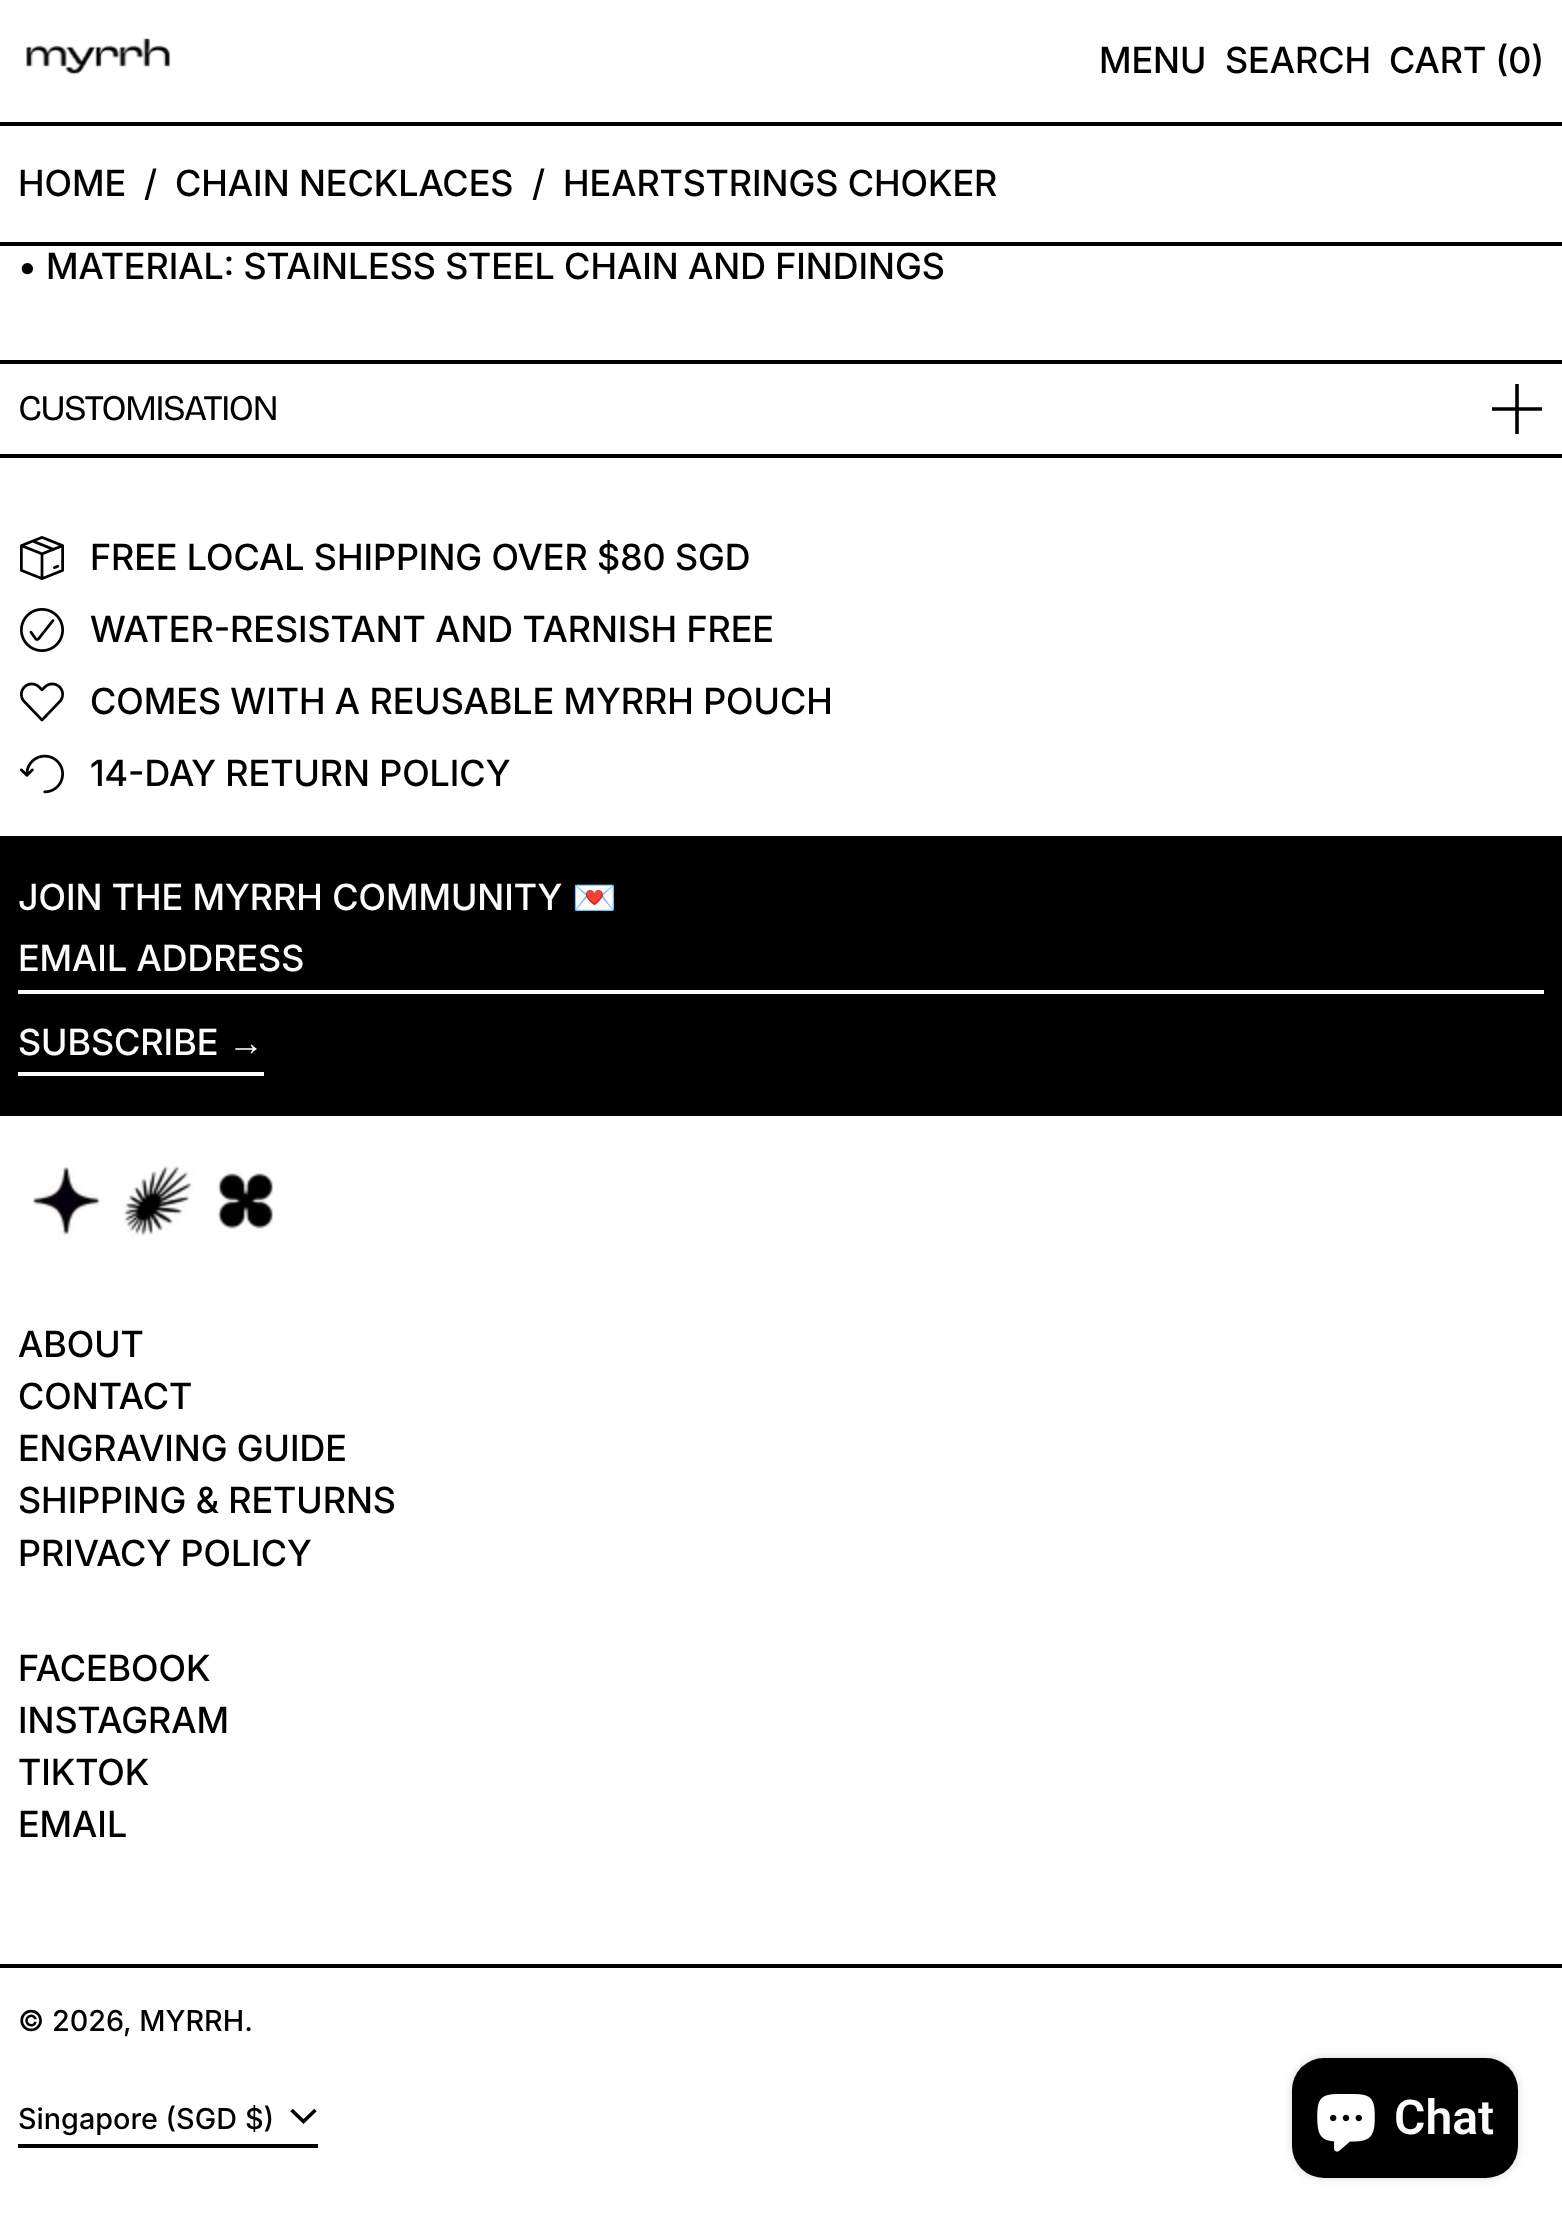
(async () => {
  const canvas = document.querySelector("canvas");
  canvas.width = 1562;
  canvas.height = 2219;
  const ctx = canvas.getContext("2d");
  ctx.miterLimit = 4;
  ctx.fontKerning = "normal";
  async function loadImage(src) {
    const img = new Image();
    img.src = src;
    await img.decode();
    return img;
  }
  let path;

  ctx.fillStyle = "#ffffff";
  ctx.fillRect(0, 0, 1562, 2219);
  ctx.fillStyle = "#000000";
  ctx.fillRect(0, 122, 1562, 4);
  ctx.drawImage(await loadImage("img/1.png"), 26, 38, 145, 37);
  for (const [x, y, w, h, color] of [
    [0, 242, 1562, 4, "#000000"],
    [0, 836, 1562, 280, "#000000"],
    [0, 360, 1562, 4, "#000000"],
    [0, 454, 1562, 4, "#000000"],
  ]) {
    ctx.fillStyle = color;
    ctx.fillRect(x, y, w, h);
  }
  path = new Path2D("M1517 384V434M1492 409H1542");
  ctx.strokeStyle = "#000000";
  ctx.lineWidth = 3.6;
  ctx.stroke(path);
  ctx.drawImage(await loadImage("img/2.png"), 20, 536, 44, 44);
  ctx.drawImage(await loadImage("img/3.png"), 20, 608, 44, 44);
  ctx.drawImage(await loadImage("img/4.png"), 20, 682, 44, 40);
  ctx.drawImage(await loadImage("img/5.png"), 20, 754, 44, 40);
  for (const [x, y, w, h, color] of [
    [18, 990, 1526, 4, "#fcfcfc"],
    [18, 1072, 246, 4, "#fcfcfc"],
    [0, 1964, 1562, 4, "#000000"],
  ]) {
    ctx.fillStyle = color;
    ctx.fillRect(x, y, w, h);
  }
  ctx.drawImage(await loadImage("img/6.png"), 33, 1165, 241, 75);
  ctx.fillRect(18, 2144, 300, 4);
  path = new Path2D("M291.5 2110L303.5 2121.5L315.5 2110");
  ctx.stroke(path);
  ctx.fillStyle = "rgba(0, 0, 0, 0.15)";
  ctx.filter = "blur(5px)";
  ctx.beginPath();
  ctx.roundRect(1292, 2058, 226, 120, 32);
  ctx.fill();
  ctx.filter = "none";
  ctx.fillStyle = "#000000";
  ctx.beginPath();
  ctx.roundRect(1292, 2058, 226, 120, 32);
  ctx.fill();
  ctx.drawImage(await loadImage("img/7.png"), 1317, 2094, 58, 58);
  ctx.font = "500 36px Inter";
  for (const [text, x, y] of [
    ["MENU", 1099, 73],
    ["SEARCH", 1225, 73],
    ["CART (0)", 1389, 73],
    ["HOME", 18, 196],
    ["/", 144, 196],
    ["CHAIN NECKLACES", 175, 196],
    ["/", 532, 196],
    ["HEARTSTRINGS CHOKER", 563, 196],
    ["• MATERIAL: STAINLESS STEEL CHAIN AND FINDINGS", 18, 279],
  ]) {
    ctx.fillText(text, x, y);
  }
  ctx.letterSpacing = "-1.75px";
  ctx.font = "36px Bricolage Grotesque";
  ctx.fillText("CUSTOMISATION", 18, 420);
  ctx.letterSpacing = "0px";
  ctx.font = "500 36px Inter";
  for (const [text, x, y] of [
    ["FREE LOCAL SHIPPING OVER $80 SGD", 90, 570],
    ["WATER-RESISTANT AND TARNISH FREE", 90, 642],
    ["COMES WITH A REUSABLE MYRRH POUCH", 90, 714],
    ["14-DAY RETURN POLICY", 90, 786],
  ]) {
    ctx.fillText(text, x, y);
  }
  ctx.fillStyle = "#fcfcfc";
  ctx.fillText("JOIN THE MYRRH COMMUNITY", 18, 910);
  ctx.font = "36px Noto Color Emoji";
  ctx.fillText("💌", 572, 910);
  ctx.font = "500 36px Inter";
  ctx.fillText("EMAIL ADDRESS", 18, 971);
  ctx.fillText("SUBSCRIBE", 18, 1055);
  ctx.font = "36px Liberation Sans";
  ctx.fillText("→", 228, 1055);
  ctx.font = "500 36px Inter";
  ctx.fillStyle = "#000000";
  for (const [text, x, y] of [
    ["ABOUT", 18, 1357],
    ["CONTACT", 18, 1409],
    ["ENGRAVING GUIDE", 18, 1461],
    ["SHIPPING & RETURNS", 18, 1513],
    ["PRIVACY POLICY", 18, 1566],
    ["FACEBOOK", 18, 1681],
    ["INSTAGRAM", 18, 1733],
    ["TIKTOK", 18, 1785],
    ["EMAIL", 18, 1837],
  ]) {
    ctx.fillText(text, x, y);
  }
  ctx.font = "500 28.75px 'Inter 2'";
  for (const [text, x, y] of [
    ["© 2026, MYRRH.", 18, 2031],
    ["Singapore (SGD", 18, 2129],
    ["$)", 245, 2129],
  ]) {
    ctx.fillText(text, x, y);
  }
  ctx.font = "600 48px Roboto";
  ctx.fillStyle = "#fcfcfc";
  ctx.fillText("Chat", 1394, 2134);
})();
